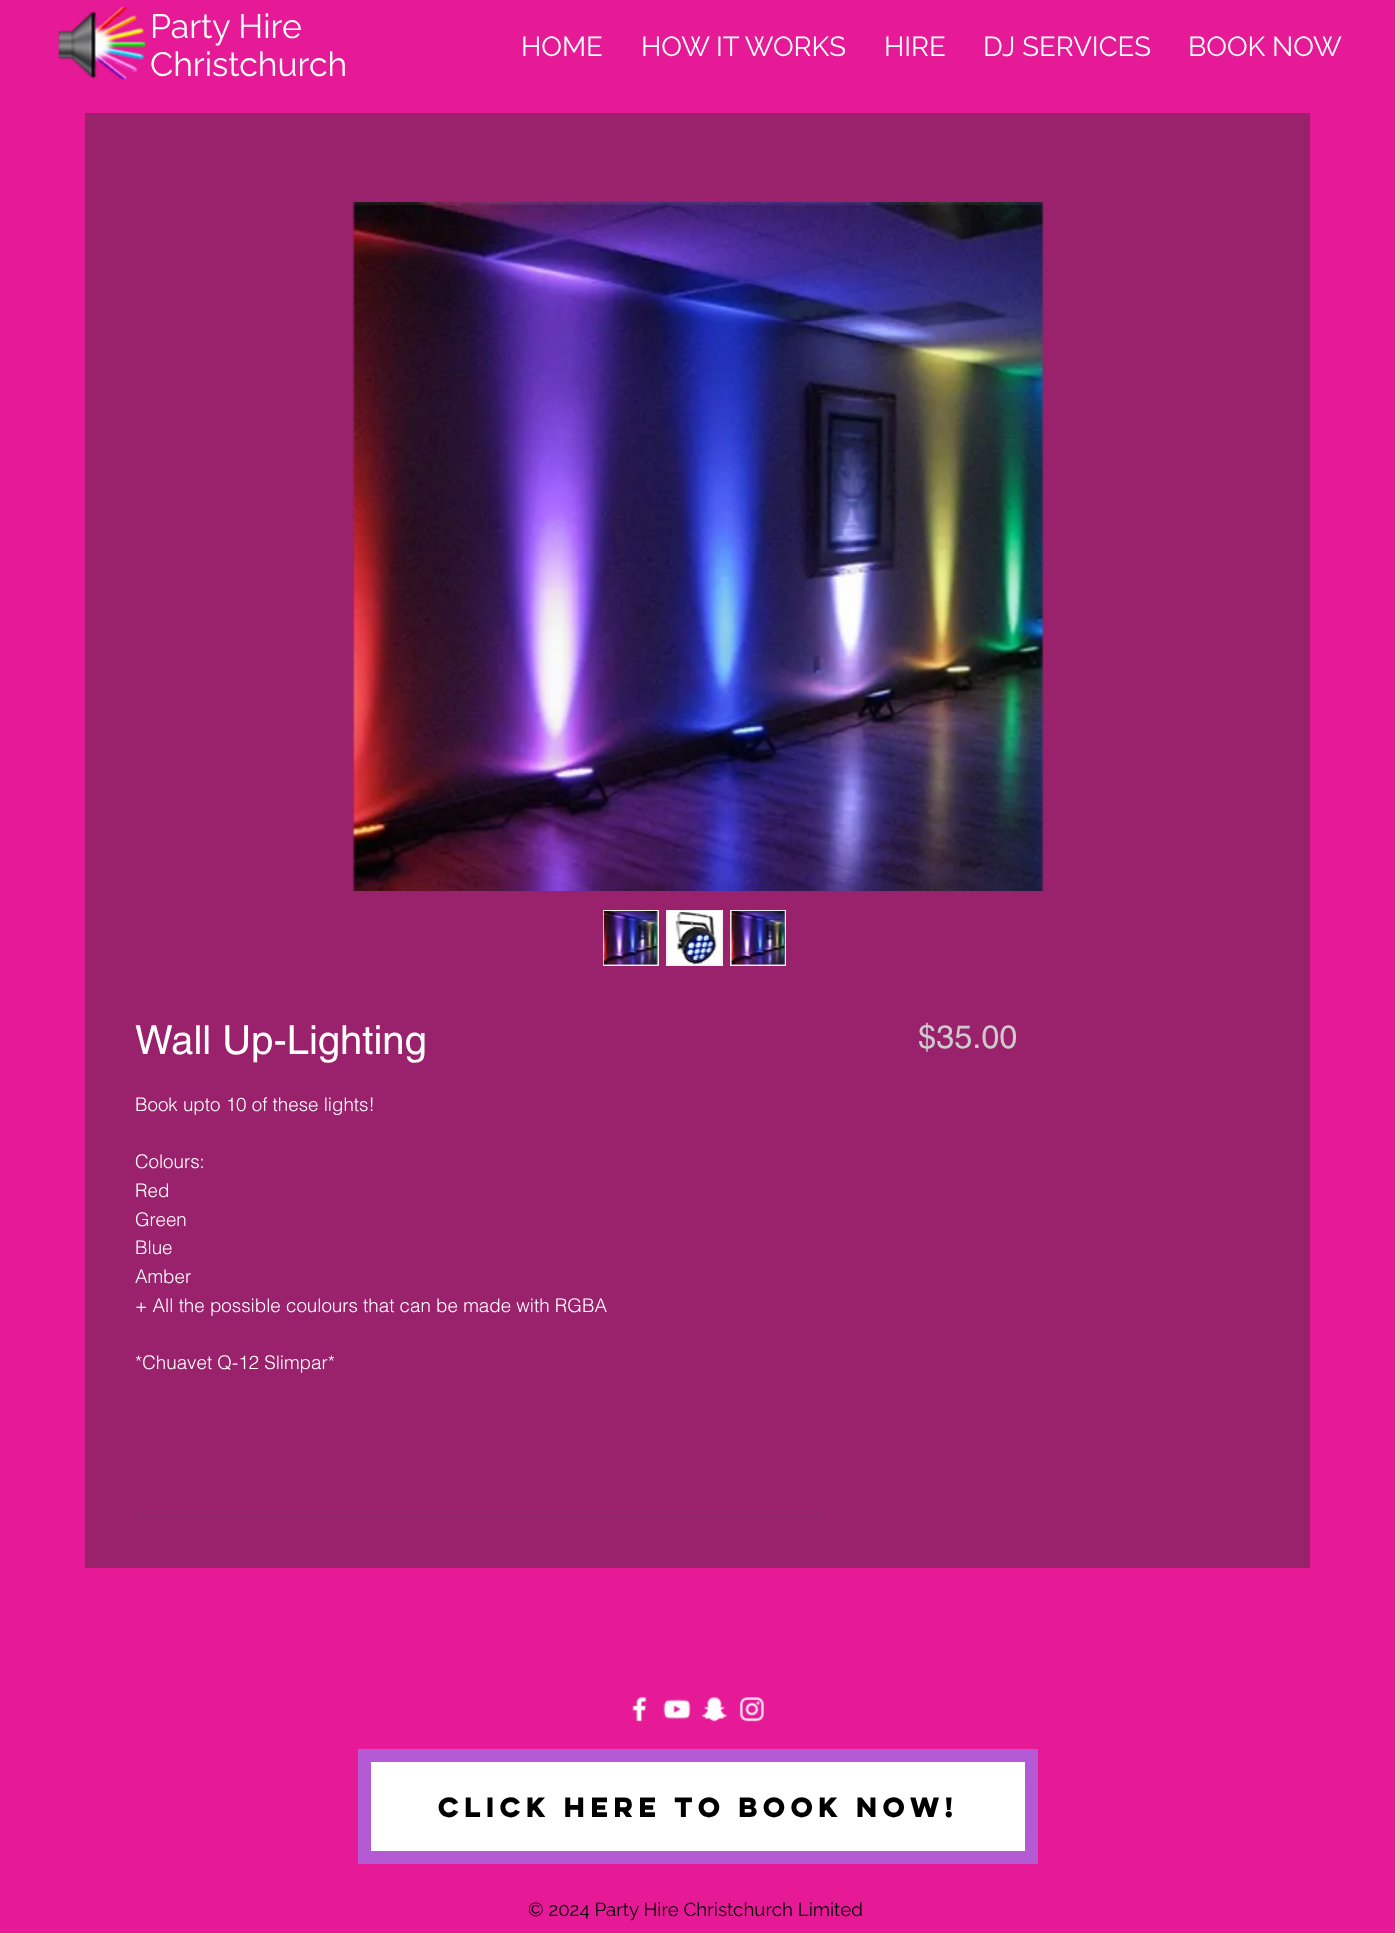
(async () => {
  const canvas = document.querySelector("canvas");
  canvas.width = 1395;
  canvas.height = 1933;
  const ctx = canvas.getContext("2d");
  ctx.miterLimit = 4;
  ctx.fontKerning = "normal";
  async function loadImage(src) {
    const img = new Image();
    img.src = src;
    await img.decode();
    return img;
  }

  ctx.fillStyle = "#e61997";
  ctx.fillRect(0, 0, 1395, 1933);
  ctx.drawImage(await loadImage("img/1.png"), 58, 7, 88, 73);
  ctx.fillStyle = "#9a216b";
  ctx.fillRect(85, 113, 1225, 1455);
  ctx.drawImage(await loadImage("img/2.png"), 352, 202, 692, 689);
  ctx.fillStyle = "#f2f2f2";
  ctx.beginPath();
  ctx.rect(603.5, 910.5, 55, 55);
  ctx.fill();
  ctx.strokeStyle = "#f7f5e1";
  ctx.stroke();
  ctx.drawImage(await loadImage("img/3.png"), 603, 911, 55, 54);
  ctx.fillRect(666, 910, 57, 56);
  ctx.drawImage(await loadImage("img/4.png"), 668, 911, 53, 54);
  ctx.fillRect(730, 910, 56, 56);
  ctx.drawImage(await loadImage("img/5.png"), 730, 911, 56, 54);
  ctx.fillStyle = "#8e2e69";
  ctx.fillRect(135, 1516, 684, 1);
  ctx.drawImage(await loadImage("img/6.png"), 632, 1697, 15, 25);
  ctx.drawImage(await loadImage("img/7.png"), 663, 1699, 28, 20);
  ctx.drawImage(await loadImage("img/8.png"), 701, 1697, 27, 25);
  ctx.drawImage(await loadImage("img/9.png"), 739, 1697, 25, 25);
  ctx.fillStyle = "#ffffff";
  ctx.beginPath();
  ctx.rect(364.5, 1755.5, 667, 102);
  ctx.fill();
  ctx.strokeStyle = "#b45ad4";
  ctx.lineWidth = 13;
  ctx.stroke();
  ctx.font = "33.75px Raleway";
  ctx.fillText("Party Hire", 150, 38);
  ctx.fillText("Christchurch", 150, 76);
  ctx.font = "27.5px Raleway";
  for (const [text, x, y] of [
    ["HOME", 521, 56],
    ["HOW IT WORKS", 641, 56],
    ["HIRE", 884, 56],
    ["DJ SERVICES", 983, 56],
    ["BOOK NOW", 1188, 56],
  ]) {
    ctx.fillText(text, x, y);
  }
  ctx.font = "40px helvetica";
  ctx.fillText("Wall Up-Lighting", 135, 1054);
  ctx.font = "300 18.75px helvetica";
  for (const [text, x, y] of [
    ["Book upto 10 of these lights!", 135, 1111],
    ["Colours:", 135, 1168],
    ["Red", 135, 1197],
    ["Green", 135, 1226],
    ["Blue", 135, 1254],
    ["Amber", 135, 1283],
    ["+ All the possible coulours that can be made with RGBA", 135, 1312],
    ["*Chuavet Q-12 Slimpar*", 135, 1369],
  ]) {
    ctx.fillText(text, x, y);
  }
  ctx.font = "32.5px helvetica";
  ctx.fillStyle = "#cccccc";
  ctx.fillText("$35.00", 918, 1048);
  ctx.font = "bold 25px 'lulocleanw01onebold'";
  ctx.fillStyle = "#000000";
  ctx.fillText("Click here to book now!", 438, 1817);
  ctx.font = "18.75px Raleway";
  ctx.fillText("© 2024 Party Hire Christchurch Limited", 528, 1916);
})();
